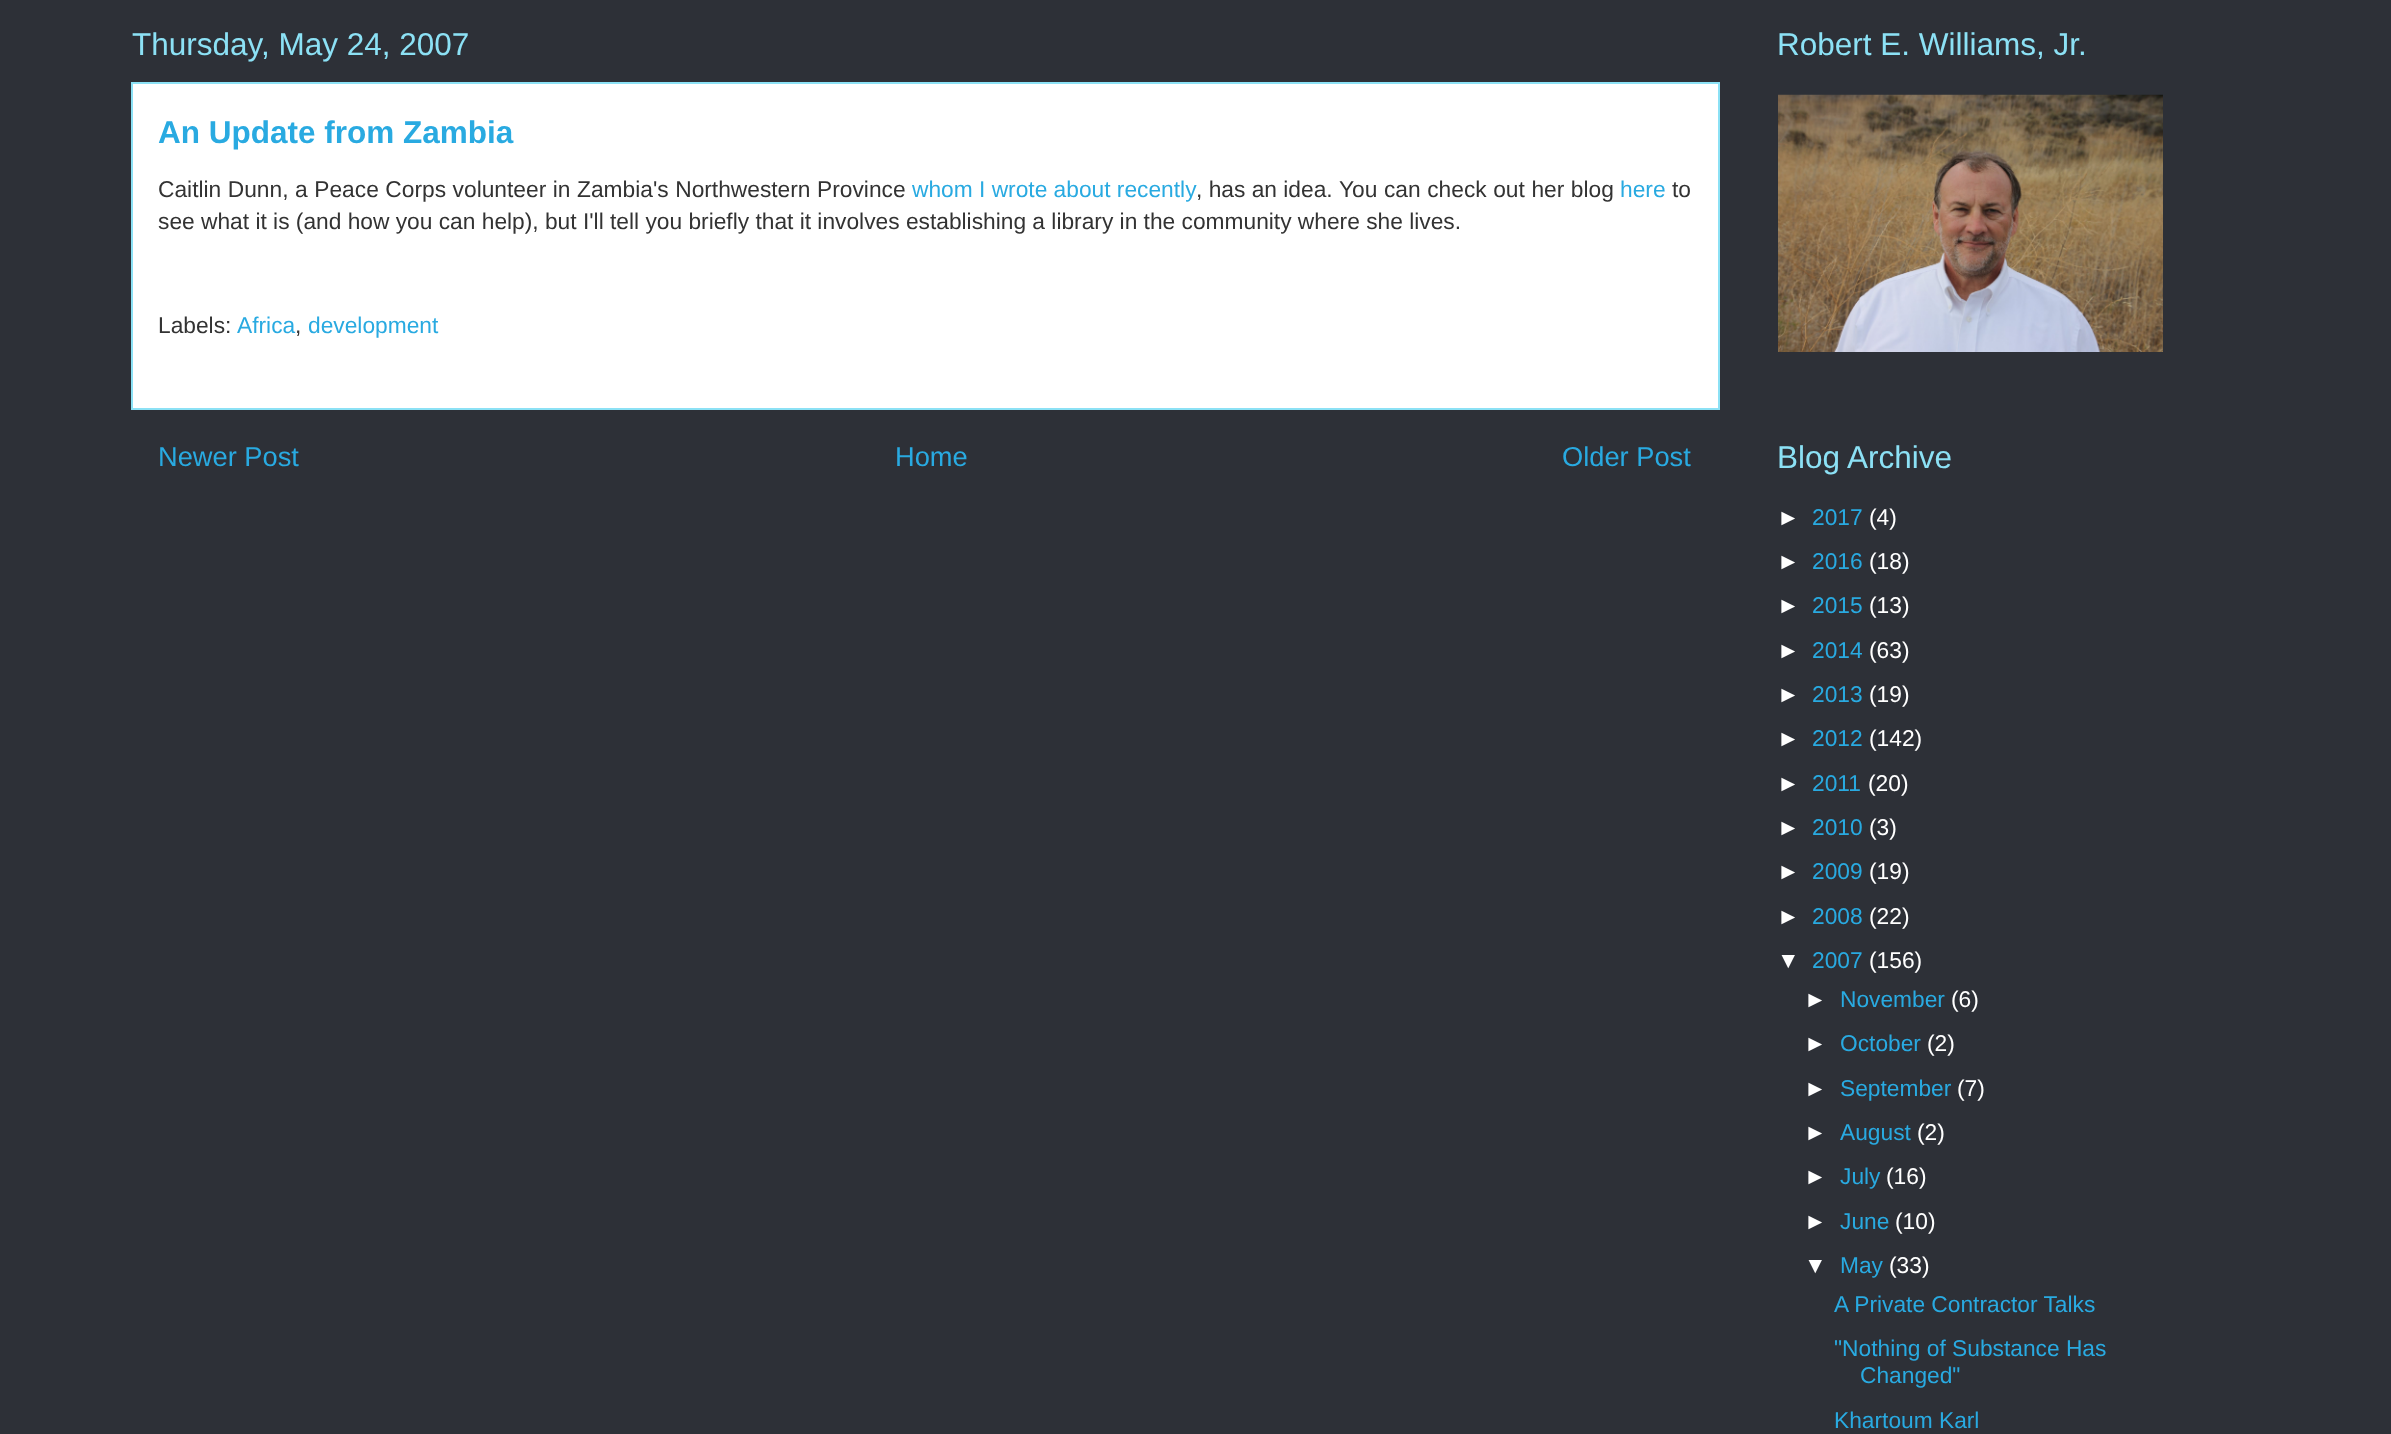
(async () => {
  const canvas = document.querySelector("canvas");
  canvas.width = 2391;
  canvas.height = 1434;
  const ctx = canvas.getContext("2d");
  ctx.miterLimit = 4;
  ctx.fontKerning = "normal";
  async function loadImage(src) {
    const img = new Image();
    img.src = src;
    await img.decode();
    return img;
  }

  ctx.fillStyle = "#2d3037";
  ctx.fillRect(0, 0, 2391, 1434);
  ctx.fillStyle = "#ffffff";
  ctx.beginPath();
  ctx.rect(132, 83, 1587, 326);
  ctx.fill();
  ctx.strokeStyle = "#8ce1f5";
  ctx.lineWidth = 2;
  ctx.stroke();
  ctx.drawImage(await loadImage("img/1.png"), 1778, 94, 385, 258);
  ctx.font = "31.5px Liberation Sans";
  ctx.fillStyle = "#8ce1f5";
  ctx.fillText("Thursday, May 24, 2007", 132, 55);
  ctx.font = "bold 31.5px Liberation Sans";
  ctx.fillStyle = "#29aae1";
  ctx.fillText("An Update from Zambia", 158, 143);
  ctx.wordSpacing = "0.25px";
  ctx.font = "22.75px Liberation Sans";
  ctx.fillStyle = "#333333";
  ctx.fillText("Caitlin Dunn, a Peace Corps volunteer in Zambia's Northwestern Province", 158, 197);
  ctx.wordSpacing = "0px";
  ctx.fillStyle = "#29aae1";
  ctx.fillText("whom I wrote about recently", 912, 197);
  ctx.fillStyle = "#333333";
  ctx.fillText(", has an idea.", 1196, 197);
  ctx.wordSpacing = "0.25px";
  ctx.fillText("You can check out her blog", 1339, 197);
  ctx.wordSpacing = "0px";
  ctx.fillStyle = "#29aae1";
  ctx.fillText("here", 1620, 197);
  ctx.fillStyle = "#333333";
  for (const [text, x, y] of [
    ["to", 1672, 197],
    ["see what it is (and how you can help), but I'll tell you briefly that it involves establishing a library in the community where she lives.", 158, 229],
    ["Labels:", 158, 333],
  ]) {
    ctx.fillText(text, x, y);
  }
  ctx.fillStyle = "#29aae1";
  ctx.fillText("Africa", 237, 333);
  ctx.fillStyle = "#333333";
  ctx.fillText(",", 295, 333);
  ctx.fillStyle = "#29aae1";
  ctx.fillText("development", 308, 333);
  ctx.font = "27.25px Liberation Sans";
  for (const [text, x, y] of [
    ["Newer Post", 158, 466],
    ["Home", 895, 466],
    ["Older Post", 1562, 466],
  ]) {
    ctx.fillText(text, x, y);
  }
  ctx.font = "31.5px Liberation Sans";
  ctx.fillStyle = "#8ce1f5";
  ctx.fillText("Robert E. Williams, Jr.", 1777, 55);
  ctx.fillText("Blog Archive", 1777, 468);
  ctx.font = "22.75px Liberation Sans";
  ctx.fillStyle = "#ffffff";
  ctx.fillText("►", 1777, 525);
  ctx.fillStyle = "#29aae1";
  ctx.fillText("2017", 1812, 525);
  ctx.fillStyle = "#ffffff";
  ctx.fillText("(4)", 1869, 525);
  ctx.fillText("►", 1777, 569);
  ctx.fillStyle = "#29aae1";
  ctx.fillText("2016", 1812, 569);
  ctx.fillStyle = "#ffffff";
  ctx.fillText("(18)", 1869, 569);
  ctx.fillText("►", 1777, 613);
  ctx.fillStyle = "#29aae1";
  ctx.fillText("2015", 1812, 613);
  ctx.fillStyle = "#ffffff";
  ctx.fillText("(13)", 1869, 613);
  ctx.fillText("►", 1777, 658);
  ctx.fillStyle = "#29aae1";
  ctx.fillText("2014", 1812, 658);
  ctx.fillStyle = "#ffffff";
  ctx.fillText("(63)", 1869, 658);
  ctx.fillText("►", 1777, 702);
  ctx.fillStyle = "#29aae1";
  ctx.fillText("2013", 1812, 702);
  ctx.fillStyle = "#ffffff";
  ctx.fillText("(19)", 1869, 702);
  ctx.fillText("►", 1777, 746);
  ctx.fillStyle = "#29aae1";
  ctx.fillText("2012", 1812, 746);
  ctx.fillStyle = "#ffffff";
  ctx.fillText("(142)", 1869, 746);
  ctx.fillText("►", 1777, 791);
  ctx.fillStyle = "#29aae1";
  ctx.fillText("2011", 1812, 791);
  ctx.fillStyle = "#ffffff";
  ctx.fillText("(20)", 1868, 791);
  ctx.fillText("►", 1777, 835);
  ctx.fillStyle = "#29aae1";
  ctx.fillText("2010", 1812, 835);
  ctx.fillStyle = "#ffffff";
  ctx.fillText("(3)", 1869, 835);
  ctx.fillText("►", 1777, 879);
  ctx.fillStyle = "#29aae1";
  ctx.fillText("2009", 1812, 879);
  ctx.fillStyle = "#ffffff";
  ctx.fillText("(19)", 1869, 879);
  ctx.fillText("►", 1777, 924);
  ctx.fillStyle = "#29aae1";
  ctx.fillText("2008", 1812, 924);
  ctx.fillStyle = "#ffffff";
  ctx.fillText("(22)", 1869, 924);
  ctx.fillText("▼", 1777, 968);
  ctx.fillStyle = "#29aae1";
  ctx.fillText("2007", 1812, 968);
  ctx.fillStyle = "#ffffff";
  ctx.fillText("(156)", 1869, 968);
  ctx.fillText("►", 1804, 1007);
  ctx.fillStyle = "#29aae1";
  ctx.fillText("November", 1840, 1007);
  ctx.fillStyle = "#ffffff";
  ctx.fillText("(6)", 1951, 1007);
  ctx.fillText("►", 1804, 1051);
  ctx.fillStyle = "#29aae1";
  ctx.fillText("October", 1840, 1051);
  ctx.fillStyle = "#ffffff";
  ctx.fillText("(2)", 1927, 1051);
  ctx.fillText("►", 1804, 1096);
  ctx.fillStyle = "#29aae1";
  ctx.fillText("September", 1840, 1096);
  ctx.fillStyle = "#ffffff";
  ctx.fillText("(7)", 1957, 1096);
  ctx.fillText("►", 1804, 1140);
  ctx.fillStyle = "#29aae1";
  ctx.fillText("August", 1840, 1140);
  ctx.fillStyle = "#ffffff";
  ctx.fillText("(2)", 1917, 1140);
  ctx.fillText("►", 1804, 1184);
  ctx.fillStyle = "#29aae1";
  ctx.fillText("July", 1840, 1184);
  ctx.fillStyle = "#ffffff";
  ctx.fillText("(16)", 1886, 1184);
  ctx.fillText("►", 1804, 1229);
  ctx.fillStyle = "#29aae1";
  ctx.fillText("June", 1840, 1229);
  ctx.fillStyle = "#ffffff";
  ctx.fillText("(10)", 1895, 1229);
  ctx.fillText("▼", 1804, 1273);
  ctx.fillStyle = "#29aae1";
  ctx.fillText("May", 1840, 1273);
  ctx.fillStyle = "#ffffff";
  ctx.fillText("(33)", 1889, 1273);
  ctx.fillStyle = "#29aae1";
  for (const [text, x, y] of [
    ["A Private Contractor Talks", 1834, 1312],
    ["\"Nothing of Substance Has", 1834, 1356],
    ["Changed\"", 1860, 1383],
    ["Khartoum Karl", 1834, 1428],
  ]) {
    ctx.fillText(text, x, y);
  }
})();
